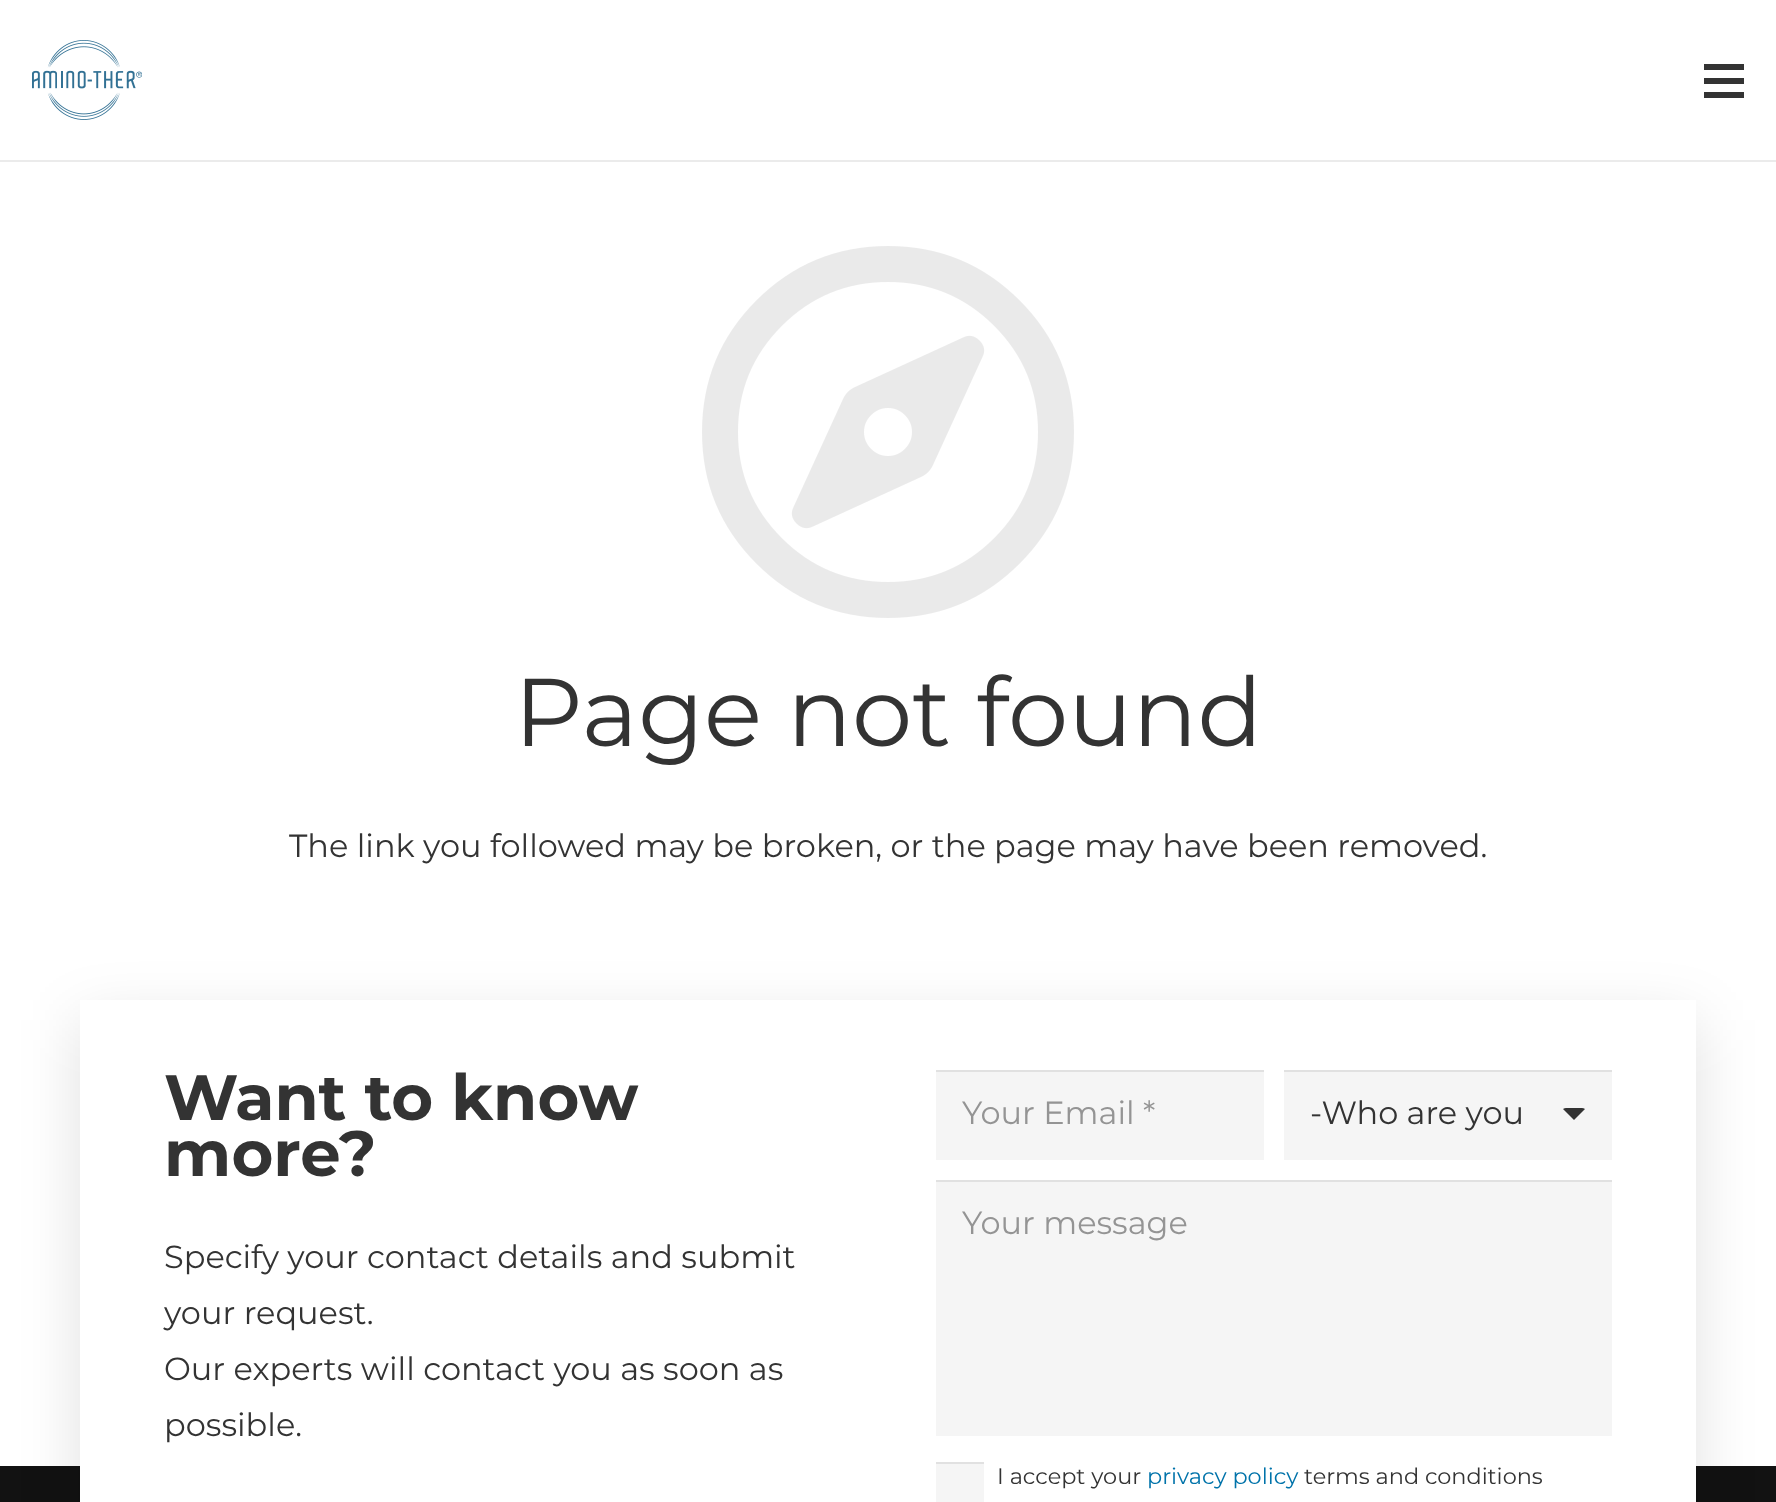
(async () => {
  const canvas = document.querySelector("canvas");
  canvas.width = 1776;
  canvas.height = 1502;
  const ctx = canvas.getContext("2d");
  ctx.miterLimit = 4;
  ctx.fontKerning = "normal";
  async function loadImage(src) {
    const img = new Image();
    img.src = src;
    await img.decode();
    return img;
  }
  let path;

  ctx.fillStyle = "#ffffff";
  ctx.fillRect(0, 0, 1776, 1502);
  ctx.fillStyle = "#ebebeb";
  ctx.fillRect(0, 160, 1776, 2);
  ctx.drawImage(await loadImage("img/1.png"), 32, 40, 110, 80);
  for (const [x, y, w, h, color] of [
    [1704, 78, 40, 6, "#333333"],
    [1704, 64, 40, 6, "#333333"],
    [1704, 92, 40, 6, "#333333"],
  ]) {
    ctx.fillStyle = color;
    ctx.fillRect(x, y, w, h);
  }
  ctx.drawImage(await loadImage("img/2.png"), 702, 246, 372, 372);
  ctx.fillStyle = "#121212";
  ctx.fillRect(0, 1466, 1776, 36);
  ctx.fillStyle = "rgba(0, 0, 0, 0.12)";
  ctx.filter = "blur(30px)";
  ctx.beginPath();
  ctx.rect(80, 1020, 1616, 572);
  ctx.fill();
  ctx.filter = "none";
  for (const [x, y, w, h, color] of [
    [80, 1000, 1616, 502, "#ffffff"],
    [936, 1072, 328, 88, "#f5f5f5"],
    [936, 1070, 328, 2, "#e1e1e1"],
    [1284, 1072, 328, 88, "#f5f5f5"],
    [1284, 1070, 328, 2, "#e1e1e1"],
  ]) {
    ctx.fillStyle = color;
    ctx.fillRect(x, y, w, h);
  }
  ctx.fillStyle = "#333333";
  path = new Path2D("M1566 1108C1565 1108 1564 1108.5 1563 1109L1574 1120L1585 1109C1584 1108.5 1583 1108 1582 1108Z");
  ctx.fill(path);
  for (const [x, y, w, h, color] of [
    [936, 1182, 676, 254, "#f5f5f5"],
    [936, 1180, 676, 2, "#e1e1e1"],
    [936, 1464, 48, 38, "#f5f5f5"],
    [936, 1462, 48, 2, "#e1e1e1"],
  ]) {
    ctx.fillStyle = color;
    ctx.fillRect(x, y, w, h);
  }
  ctx.font = "96px Montserrat";
  ctx.fillStyle = "#333333";
  ctx.fillText("Page not found", 514, 746);
  ctx.font = "32px Montserrat";
  ctx.fillText("The link you followed may be broken, or the page may have been removed.", 289, 857);
  ctx.font = "bold 64px Montserrat";
  ctx.fillText("Want to know", 164, 1120);
  ctx.fillText("more?", 164, 1176);
  ctx.font = "32px Montserrat";
  for (const [text, x, y] of [
    ["Specify your contact details and submit", 164, 1268],
    ["your request.", 164, 1324],
    ["Our experts will contact you as soon as", 164, 1380],
    ["possible.", 164, 1436],
  ]) {
    ctx.fillText(text, x, y);
  }
  ctx.fillStyle = "#949494";
  ctx.fillText("Your Email *", 962, 1124);
  ctx.fillStyle = "#333333";
  ctx.fillText("-Who are you", 1310, 1124);
  ctx.fillStyle = "#949494";
  ctx.fillText("Your message", 962, 1234);
  ctx.font = "22.4px Montserrat";
  ctx.fillStyle = "#333333";
  ctx.fillText("I accept your", 997, 1484);
  ctx.fillStyle = "#0073aa";
  ctx.fillText("privacy policy", 1147, 1484);
  ctx.fillStyle = "#333333";
  ctx.fillText("terms and conditions", 1304, 1484);
})();
